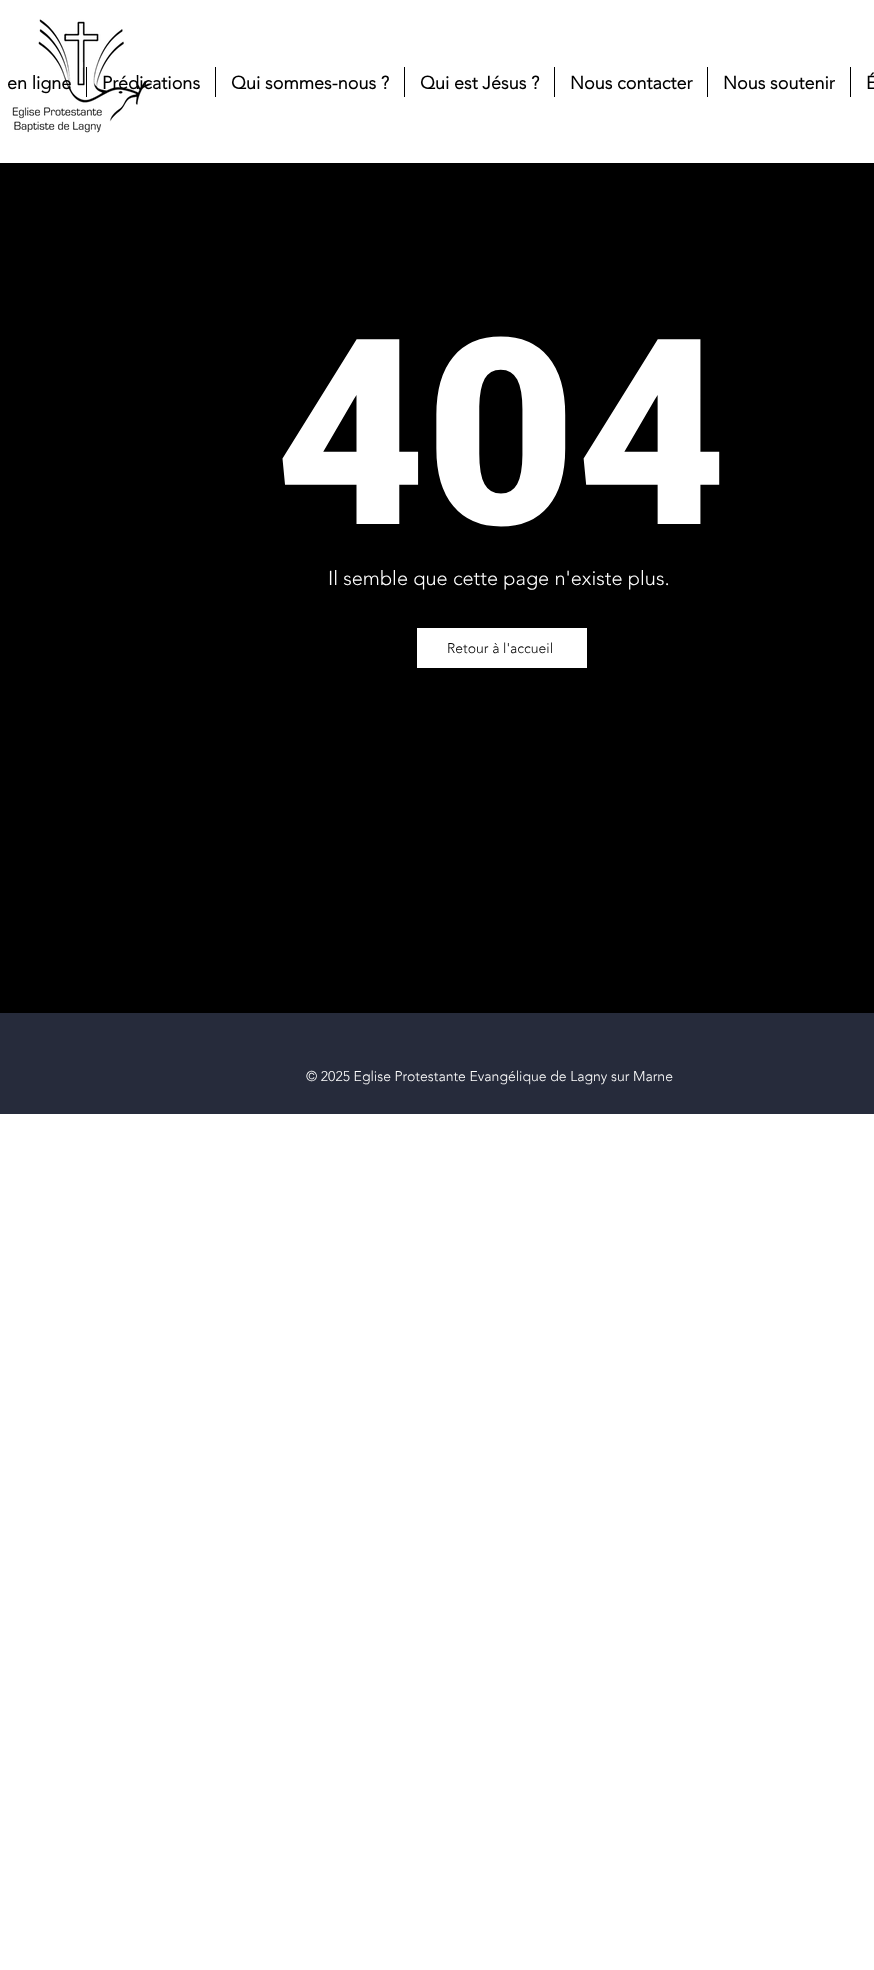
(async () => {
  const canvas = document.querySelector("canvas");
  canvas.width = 874;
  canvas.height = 1970;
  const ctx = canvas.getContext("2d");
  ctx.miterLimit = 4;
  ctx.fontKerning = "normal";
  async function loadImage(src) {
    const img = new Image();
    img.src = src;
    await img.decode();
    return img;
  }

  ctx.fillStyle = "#ffffff";
  ctx.fillRect(0, 0, 874, 1970);
  ctx.drawImage(await loadImage("img/1.png"), 12, 19, 140, 114);
  for (const [x, y, w, h, color] of [
    [86, 67, 1, 30, "#000000"],
    [215, 67, 1, 30, "#000000"],
    [404, 67, 1, 30, "#000000"],
    [554, 67, 1, 30, "#000000"],
    [707, 67, 1, 30, "#000000"],
    [850, 67, 1, 30, "#000000"],
    [0, 163, 874, 850, "#000000"],
    [417, 628, 170, 40, "#ffffff"],
    [0, 1013, 874, 101, "#262b3b"],
  ]) {
    ctx.fillStyle = color;
    ctx.fillRect(x, y, w, h);
  }
  ctx.font = "bold 18px 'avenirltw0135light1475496'";
  ctx.fillStyle = "#000000";
  for (const [text, x, y] of [
    ["en ligne", 7, 89],
    ["Prédications", 102, 89],
    ["Qui sommes-nous ?", 231, 89],
    ["Qui est Jésus ?", 420, 89],
    ["Nous contacter", 570, 89],
    ["Nous soutenir", 723, 89],
    ["É", 866, 89],
  ]) {
    ctx.fillText(text, x, y);
  }
  ctx.font = "900 260px Roboto";
  ctx.fillStyle = "#ffffff";
  ctx.fillText("404", 275, 524);
  ctx.font = "300 20px 'avenirltw0135light1475496'";
  ctx.fillText("Il semble que cette page n'existe plus.", 328, 585);
  ctx.font = "300 14px 'avenirltw0135light1475496'";
  ctx.fillStyle = "#000000";
  ctx.fillText("Retour à l'accueil", 447, 653);
  ctx.fillStyle = "#ffffff";
  ctx.fillText("© 2025 Eglise Protestante Evangélique de Lagny sur Marne", 306, 1081);
})();
